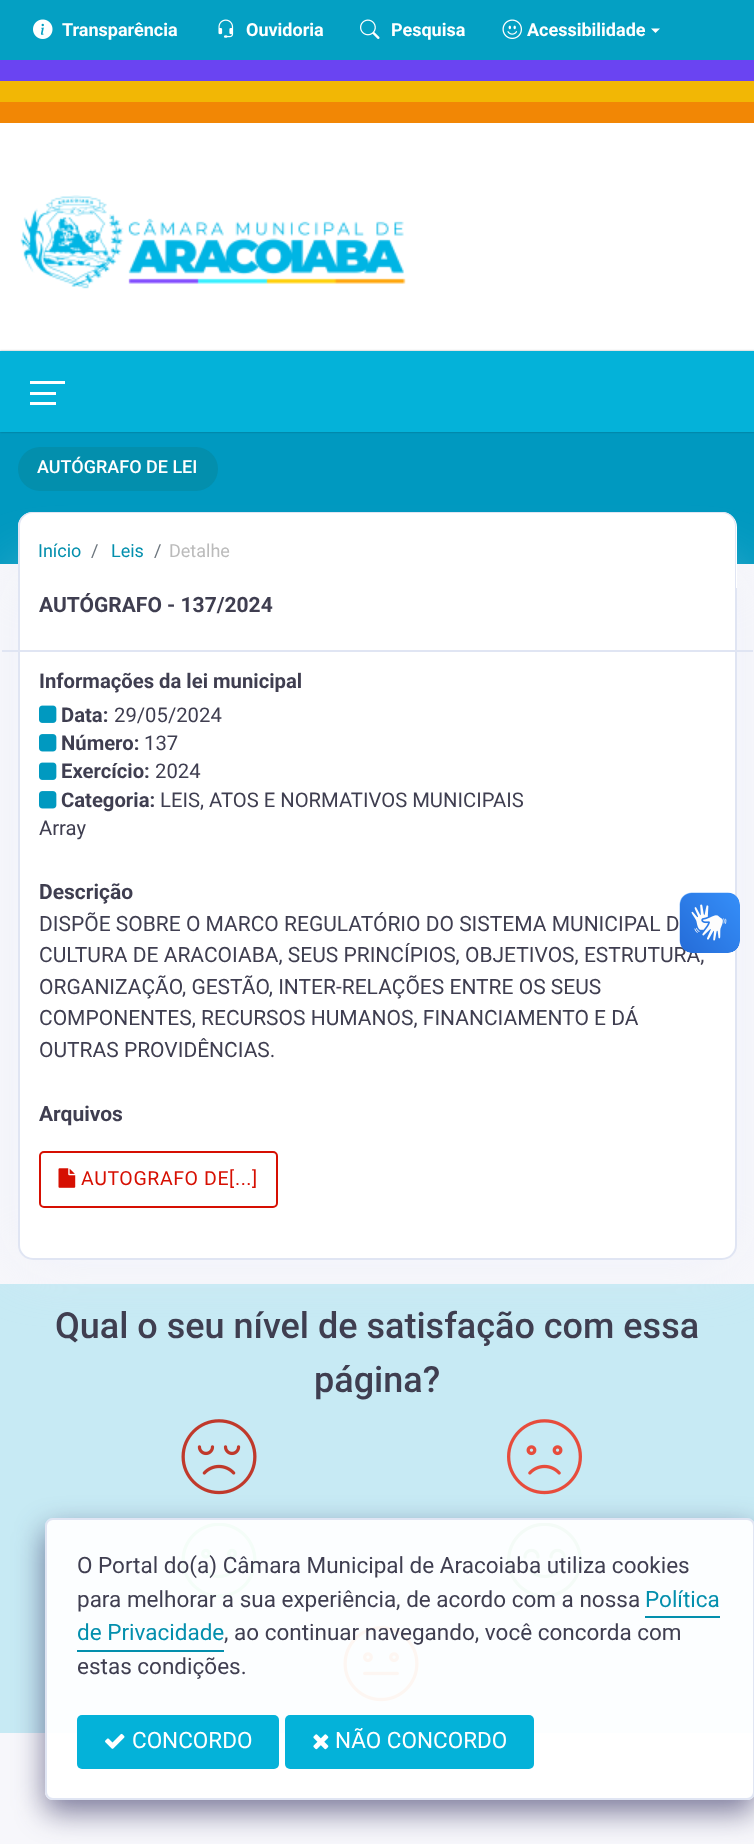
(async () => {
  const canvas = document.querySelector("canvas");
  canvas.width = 754;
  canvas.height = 1844;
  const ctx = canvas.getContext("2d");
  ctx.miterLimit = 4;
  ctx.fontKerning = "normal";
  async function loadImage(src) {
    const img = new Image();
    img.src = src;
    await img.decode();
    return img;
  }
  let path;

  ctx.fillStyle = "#f7f7fb";
  ctx.fillRect(0, 0, 754, 1844);
  ctx.fillStyle = "#ffffff";
  ctx.fillRect(0, 123, 754, 228);
  ctx.fillStyle = "#04a0c3";
  ctx.fillRect(0, 0, 754, 60);
  ctx.drawImage(await loadImage("img/1.png"), 33, 19, 20, 20);
  ctx.drawImage(await loadImage("img/2.png"), 218, 19, 16, 19);
  ctx.drawImage(await loadImage("img/3.png"), 360, 19, 20, 20);
  ctx.drawImage(await loadImage("img/4.png"), 502, 19, 20, 20);
  ctx.fillStyle = "#ffffff";
  path = new Path2D("M651 28.5H660L655.5 33Z");
  ctx.fill(path);
  for (const [x, y, w, h, color] of [
    [0, 60, 754, 21, "#6a44f2"],
    [0, 81, 754, 21, "#f2b705"],
    [0, 102, 754, 21, "#f28705"],
  ]) {
    ctx.fillStyle = color;
    ctx.fillRect(x, y, w, h);
  }
  ctx.drawImage(await loadImage("img/5.png"), 20, 195, 386, 94);
  ctx.fillStyle = "#0099c0";
  ctx.fillRect(0, 432, 754, 132);
  ctx.fillStyle = "rgba(0, 0, 0, 0.3)";
  ctx.filter = "blur(1px)";
  ctx.beginPath();
  ctx.rect(0, 351, 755, 81);
  ctx.fill();
  ctx.filter = "none";
  for (const [x, y, w, h, color] of [
    [0, 351, 754, 81, "#04b2d9"],
    [30, 392, 26, 3, "#ffffff"],
    [30, 381, 35, 3, "#ffffff"],
    [30, 402, 26, 3, "#ffffff"],
  ]) {
    ctx.fillStyle = color;
    ctx.fillRect(x, y, w, h);
  }
  ctx.fillStyle = "#038fad";
  ctx.beginPath();
  ctx.roundRect(18, 447, 200, 44, 22);
  ctx.fill();
  ctx.fillStyle = "#c7eaf4";
  ctx.fillRect(0, 1284, 754, 449);
  ctx.fillStyle = "rgba(234, 238, 249, 0.5)";
  ctx.filter = "blur(30px)";
  ctx.beginPath();
  ctx.roundRect(18, 573, 719, 687, 15);
  ctx.fill();
  ctx.filter = "none";
  ctx.fillStyle = "#ffffff";
  ctx.beginPath();
  ctx.roundRect(19, 574, 717, 685, 14);
  ctx.fill();
  ctx.strokeStyle = "#e0e5f3";
  ctx.lineWidth = 2;
  ctx.stroke();
  ctx.beginPath();
  ctx.roundRect(18, 512, 719, 76, [15, 15, 0, 0]);
  ctx.fill();
  ctx.fillStyle = "#e0e5f3";
  path = new Path2D("M33 512H722C730 512 736 518 736 526V588H18V526C18 518 25 512 33 512ZM33 513H722C729 513 735 519 735 526V588H20V526C20 519 26 513 33 513Z");
  ctx.fill(path, "evenodd");
  ctx.fillRect(2, 650, 751, 2);
  ctx.drawImage(await loadImage("img/6.png"), 39, 705, 18, 18);
  ctx.drawImage(await loadImage("img/7.png"), 39, 734, 18, 18);
  ctx.drawImage(await loadImage("img/6.png"), 39, 762, 18, 18);
  ctx.drawImage(await loadImage("img/7.png"), 39, 791, 18, 18);
  ctx.beginPath();
  ctx.roundRect(40, 1152, 237, 55, 4);
  ctx.strokeStyle = "#d60f02";
  ctx.stroke();
  ctx.drawImage(await loadImage("img/8.png"), 58, 1168, 18, 20);
  ctx.drawImage(await loadImage("img/11.png"), 181, 1419, 76, 76);
  ctx.drawImage(await loadImage("img/12.png"), 507, 1419, 75, 76);
  ctx.drawImage(await loadImage("img/13.png"), 181, 1523, 76, 75);
  ctx.drawImage(await loadImage("img/14.png"), 507, 1523, 75, 75);
  ctx.drawImage(await loadImage("img/15.png"), 343, 1626, 76, 76);
  ctx.save();
  path = new Path2D("M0 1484H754V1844H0ZM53 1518H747C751.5 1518 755 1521.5 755 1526V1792C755 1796.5 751.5 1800 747 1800H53C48.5 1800 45 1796.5 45 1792V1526C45 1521.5 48.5 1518 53 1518Z");
  ctx.clip(path, "evenodd");
  ctx.fillStyle = "rgba(40, 37, 89, 0.6)";
  ctx.filter = "blur(15px)";
  ctx.beginPath();
  ctx.roundRect(45, 1530, 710, 282, 8);
  ctx.fill();
  ctx.filter = "none";
  ctx.restore();
  ctx.fillStyle = "rgba(255, 255, 255, 0.95)";
  ctx.beginPath();
  ctx.roundRect(46, 1519, 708, 280, 7);
  ctx.fill();
  ctx.strokeStyle = "#e0e5f3";
  ctx.stroke();
  ctx.fillStyle = "#038fad";
  ctx.fillRect(645, 1616, 75, 2);
  ctx.fillRect(77, 1650, 147, 2);
  ctx.fillStyle = "#04b2d9";
  ctx.beginPath();
  ctx.roundRect(77, 1715, 202, 54, 5);
  ctx.fill();
  ctx.drawImage(await loadImage("img/16.png"), 105, 1733, 20, 16);
  ctx.beginPath();
  ctx.roundRect(285, 1715, 249, 54, 5);
  ctx.fill();
  ctx.drawImage(await loadImage("img/17.png"), 313, 1734, 16, 16);
  ctx.font = "bold 18px Roboto";
  ctx.fillStyle = "#ffffff";
  for (const [text, x, y] of [
    ["Transparência", 62, 36],
    ["Ouvidoria", 246, 36],
    ["Pesquisa", 391, 36],
    ["Acessibilidade", 527, 36],
  ]) {
    ctx.fillText(text, x, y);
  }
  ctx.font = "500 18px Roboto";
  ctx.fillText("AUTÓGRAFO DE LEI", 37, 473);
  ctx.font = "18px Roboto";
  ctx.fillStyle = "#038fad";
  ctx.fillText("Início", 38, 557);
  ctx.fillStyle = "#6c757d";
  ctx.fillText("/", 91, 557);
  ctx.fillStyle = "#038fad";
  ctx.fillText("Leis", 111, 557);
  ctx.fillStyle = "#6c757d";
  ctx.fillText("/", 154, 557);
  ctx.fillStyle = "#bbbbbb";
  ctx.fillText("Detalhe", 169, 557);
  ctx.font = "bold 21px Roboto";
  ctx.fillStyle = "#3f3e50";
  ctx.fillText("AUTÓGRAFO - 137/2024", 39, 612);
  ctx.font = "bold 20.25px Roboto";
  ctx.fillText("Informações da lei municipal", 39, 688);
  ctx.fillText("Data:", 61, 722);
  ctx.font = "20.25px Roboto";
  ctx.fillText("29/05/2024", 114, 722);
  ctx.font = "bold 20.25px Roboto";
  ctx.fillText("Número:", 61, 750);
  ctx.font = "20.25px Roboto";
  ctx.fillText("137", 144, 750);
  ctx.font = "bold 20.25px Roboto";
  ctx.fillText("Exercício:", 61, 778);
  ctx.font = "20.25px Roboto";
  ctx.fillText("2024", 155, 778);
  ctx.font = "bold 20.25px Roboto";
  ctx.fillText("Categoria:", 61, 807);
  ctx.font = "20.25px Roboto";
  ctx.fillText("LEIS, ATOS E NORMATIVOS MUNICIPAIS", 160, 807);
  ctx.fillText("Array", 39, 835);
  ctx.font = "bold 21px Roboto";
  ctx.fillText("Descrição", 39, 899);
  ctx.font = "21px Roboto";
  for (const [text, x, y] of [
    ["DISPÕE SOBRE O MARCO REGULATÓRIO DO SISTEMA MUNICIPAL D", 39, 931],
    ["CULTURA DE ARACOIABA, SEUS PRINCÍPIOS, OBJETIVOS, ESTRUTURA,", 39, 962],
    ["ORGANIZAÇÃO, GESTÃO, INTER-RELAÇÕES ENTRE OS SEUS", 39, 994],
    ["COMPONENTES, RECURSOS HUMANOS, FINANCIAMENTO E DÁ", 39, 1025],
    ["OUTRAS PROVIDÊNCIAS.", 39, 1057],
  ]) {
    ctx.fillText(text, x, y);
  }
  ctx.font = "bold 21px Roboto";
  ctx.fillText("Arquivos", 39, 1121);
  ctx.letterSpacing = "0.6px";
  ctx.font = "19.5px Roboto";
  ctx.fillStyle = "#d60f02";
  ctx.fillText("AUTOGRAFO DE[...]", 81, 1185);
  ctx.drawImage(await loadImage("img/9.png"), 679, 892, 61, 61);
  ctx.drawImage(await loadImage("img/10.png"), 680, 893, 60, 60);
  ctx.letterSpacing = "0px";
  ctx.font = "500 36px Roboto";
  ctx.fillStyle = "#3f3e50";
  ctx.fillText("Qual o seu nível de satisfação com essa", 55, 1338);
  ctx.fillText("página?", 314, 1392);
  ctx.font = "22.5px Roboto";
  ctx.fillText("O Portal do(a) Câmara Municipal de Aracoiaba utiliza cookies", 77, 1573);
  ctx.fillText("para melhorar a sua experiência, de acordo com a nossa", 77, 1607);
  ctx.fillStyle = "#038fad";
  ctx.fillText("Política", 645, 1607);
  ctx.fillText("de Privacidade", 77, 1640);
  ctx.fillStyle = "#3f3e50";
  ctx.fillText(", ao continuar navegando, você concorda com", 224, 1640);
  ctx.fillText("estas condições.", 77, 1674);
  ctx.fillStyle = "#ffffff";
  ctx.fillText("CONCORDO", 132, 1748);
  ctx.fillText("NÃO CONCORDO", 335, 1748);
})();
